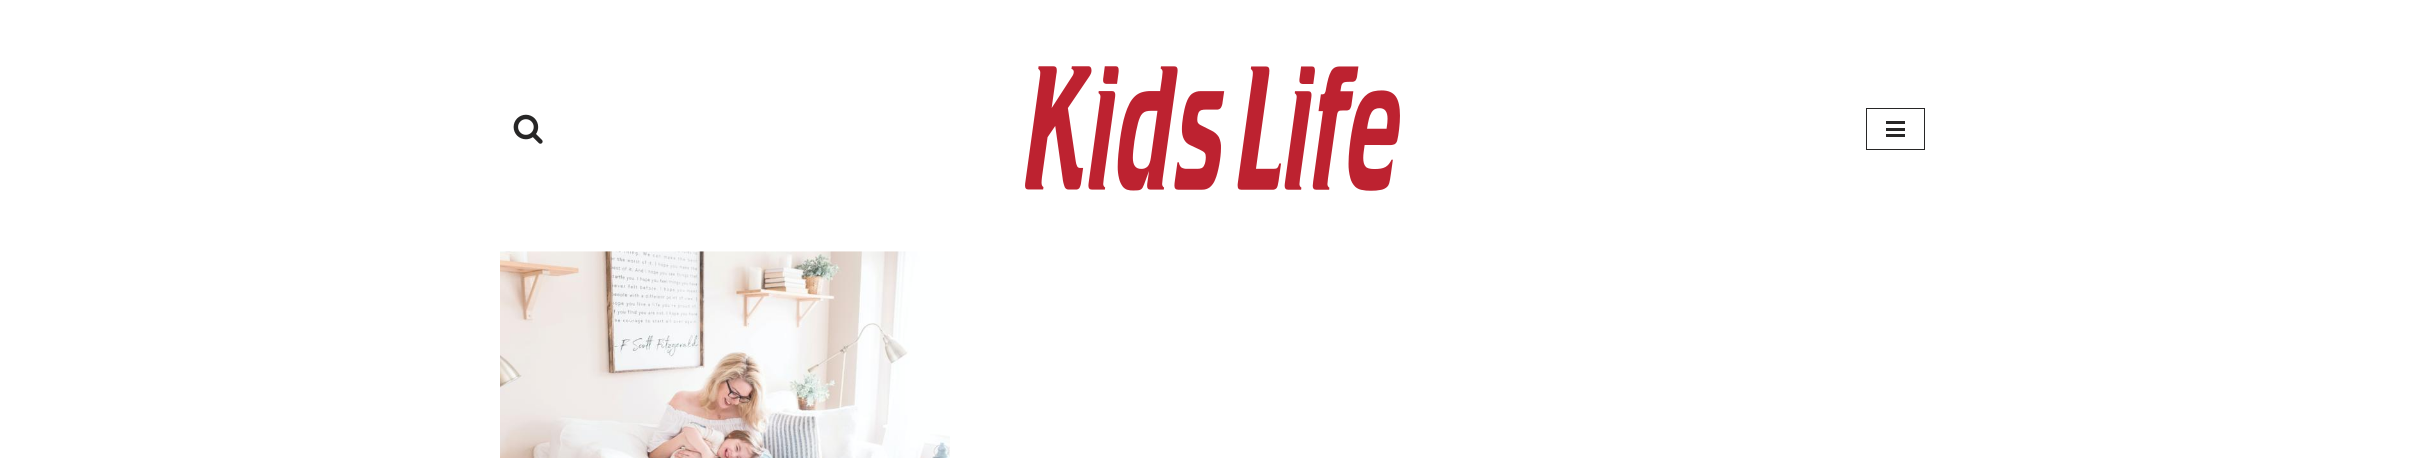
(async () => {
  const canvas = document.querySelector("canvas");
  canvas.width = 2425;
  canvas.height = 458;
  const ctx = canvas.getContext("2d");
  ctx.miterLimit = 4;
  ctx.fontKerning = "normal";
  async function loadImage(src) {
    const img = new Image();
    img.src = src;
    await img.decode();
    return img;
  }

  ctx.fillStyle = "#ffffff";
  ctx.fillRect(0, 0, 2425, 458);
  ctx.drawImage(await loadImage("img/1.png"), 513, 114, 30, 30);
  ctx.drawImage(await loadImage("img/2.png"), 1025, 66, 375, 125);
  ctx.strokeStyle = "#272626";
  ctx.strokeRect(1866.5, 108.5, 58, 41);
  for (const [x, y, w, h, color] of [
    [1886, 121, 19, 3, "#272626"],
    [1886, 128, 19, 3, "#272626"],
    [1886, 134, 19, 3, "#272626"],
  ]) {
    ctx.fillStyle = color;
    ctx.fillRect(x, y, w, h);
  }
  ctx.drawImage(await loadImage("img/3.png"), 500, 251, 450, 207);
})();
